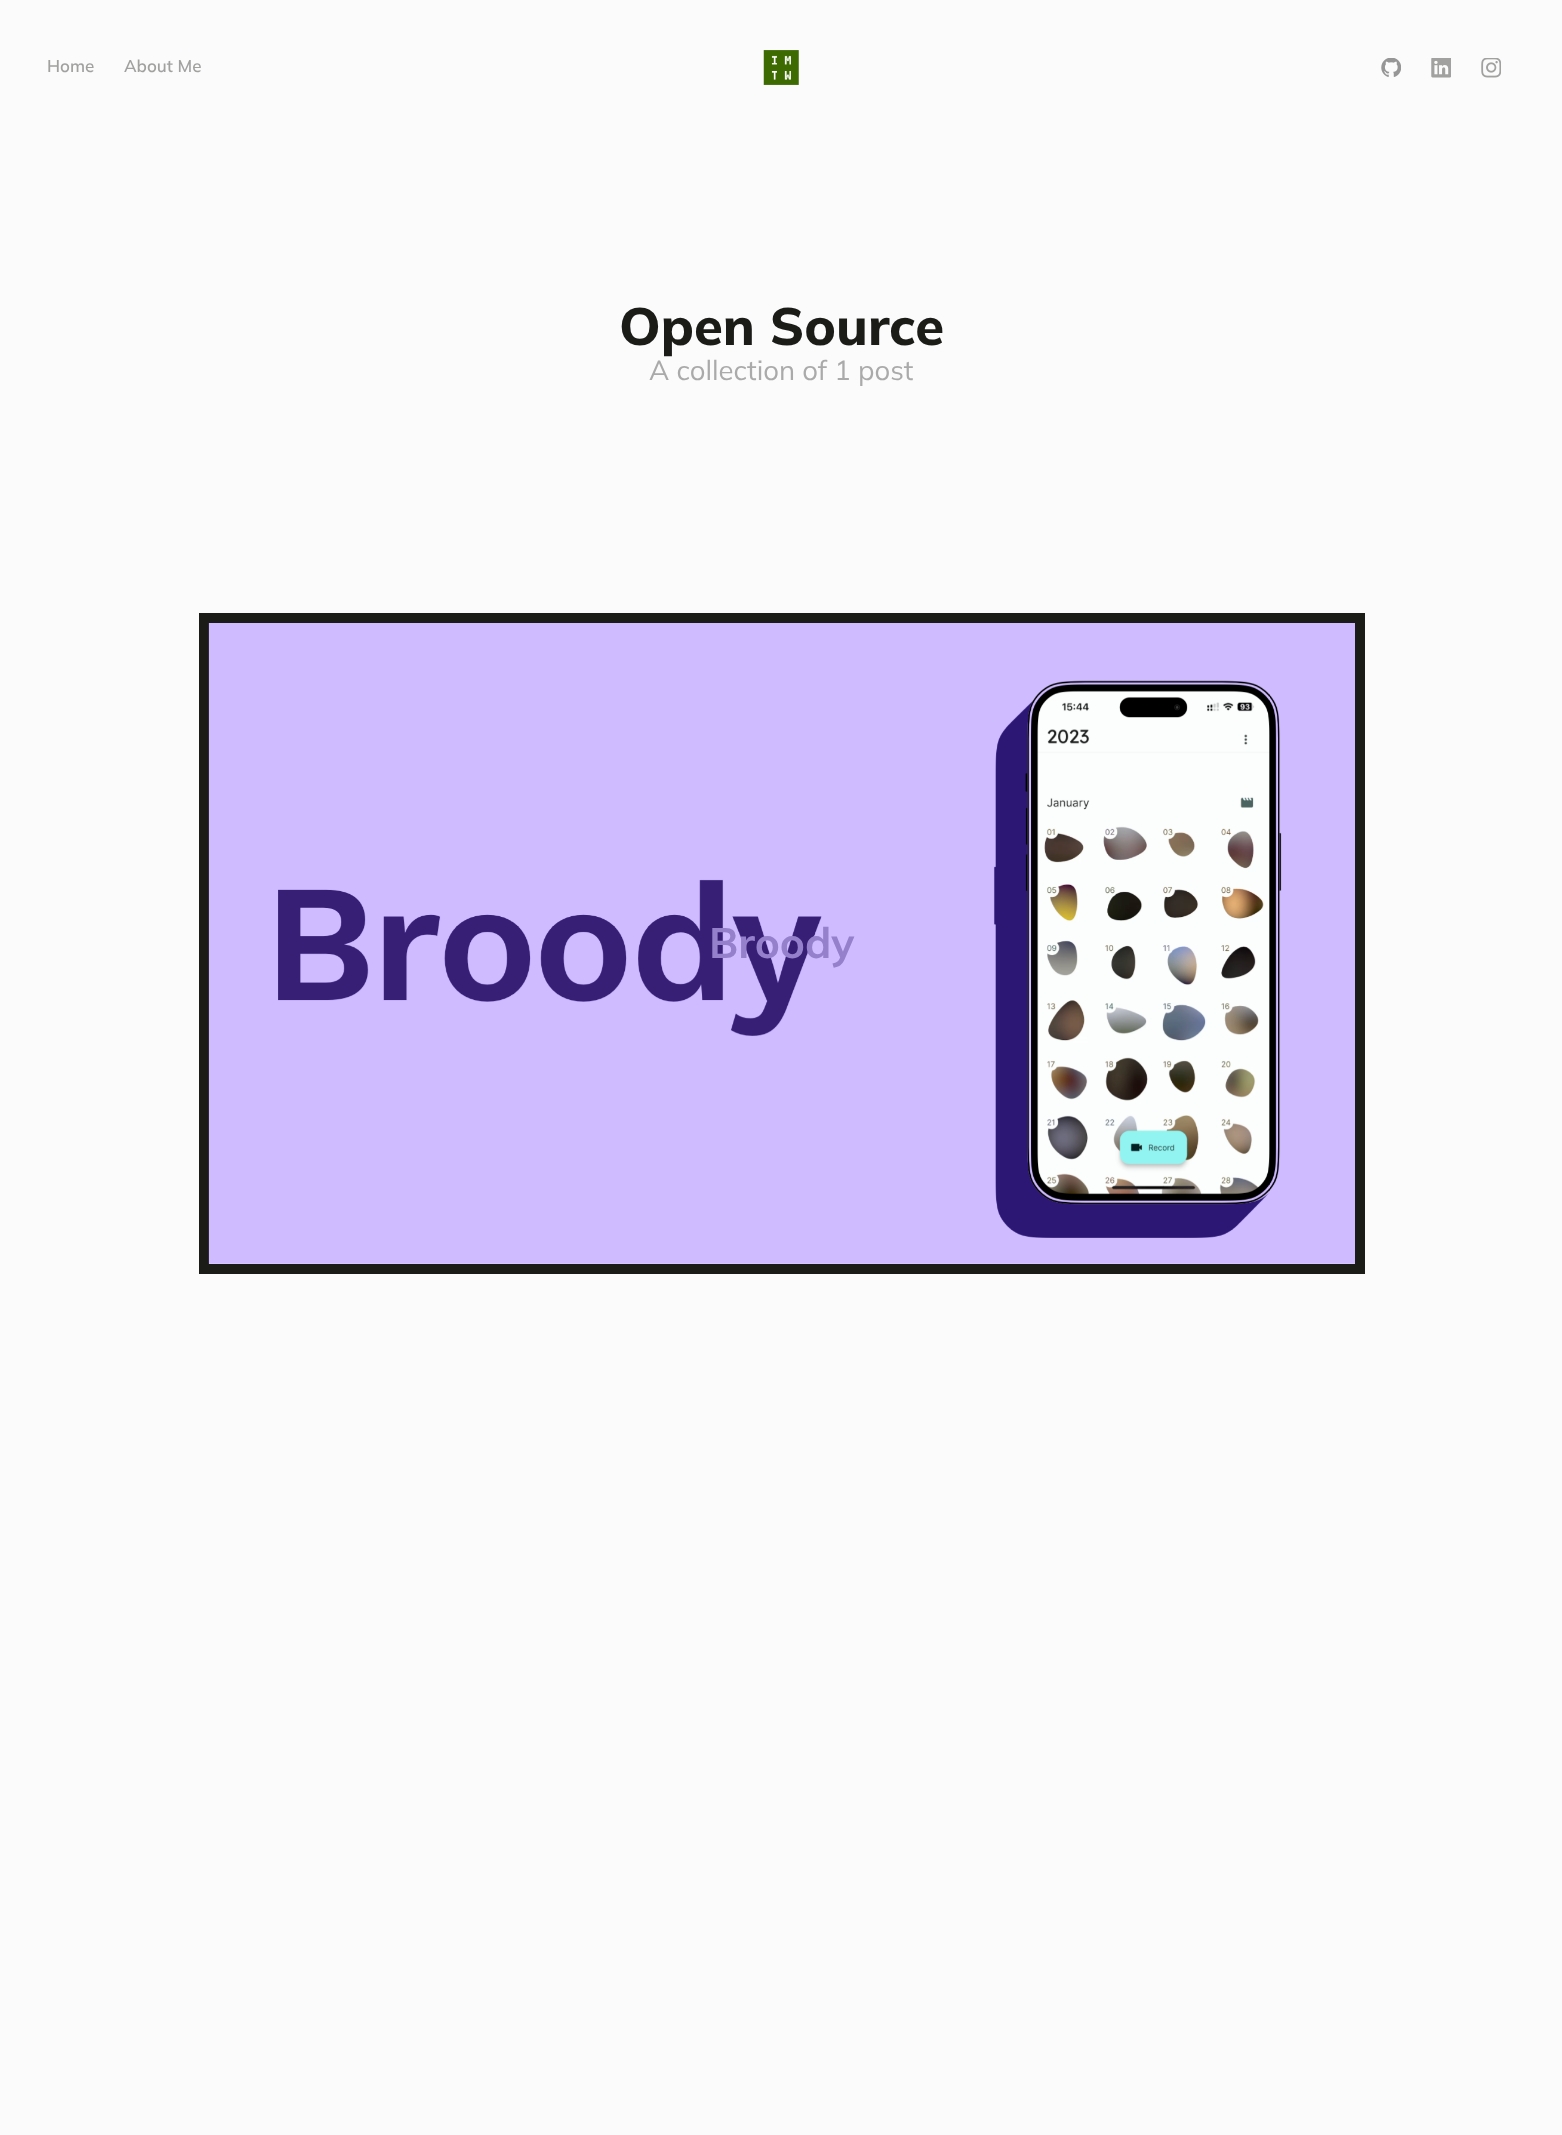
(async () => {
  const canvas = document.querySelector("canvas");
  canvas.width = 1562;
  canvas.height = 2135;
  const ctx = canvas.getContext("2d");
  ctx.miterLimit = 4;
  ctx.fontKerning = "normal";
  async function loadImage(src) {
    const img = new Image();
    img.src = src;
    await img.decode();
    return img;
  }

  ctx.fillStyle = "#fbfbfb";
  ctx.fillRect(0, 0, 1562, 2135);
  ctx.drawImage(await loadImage("img/1.png"), 763, 50, 36, 35);
  ctx.drawImage(await loadImage("img/2.png"), 1381, 58, 20, 19);
  ctx.drawImage(await loadImage("img/3.png"), 1431, 58, 20, 20);
  ctx.drawImage(await loadImage("img/4.png"), 1481, 58, 20, 20);
  ctx.strokeStyle = "#1b1c18";
  ctx.lineWidth = 10;
  ctx.strokeRect(204, 618, 1156, 651);
  ctx.drawImage(await loadImage("img/5.png"), 208, 623, 1147, 641);
  ctx.font = "600 17px Mulish";
  ctx.fillStyle = "#a1a2a0";
  ctx.fillText("Home", 47, 72);
  ctx.fillText("About Me", 124, 72);
  ctx.font = "800 52.5px Mulish";
  ctx.fillStyle = "#1b1c18";
  ctx.fillText("Open Source", 619, 345);
  ctx.font = "27.5px Mulish";
  ctx.fillStyle = "#aaaaaa";
  ctx.fillText("A collection of 1 post", 649, 380);
  ctx.font = "bold 42.5px Mulish";
  ctx.fillStyle = "#9580cb";
  ctx.fillText("Broody", 709, 958);
})();
